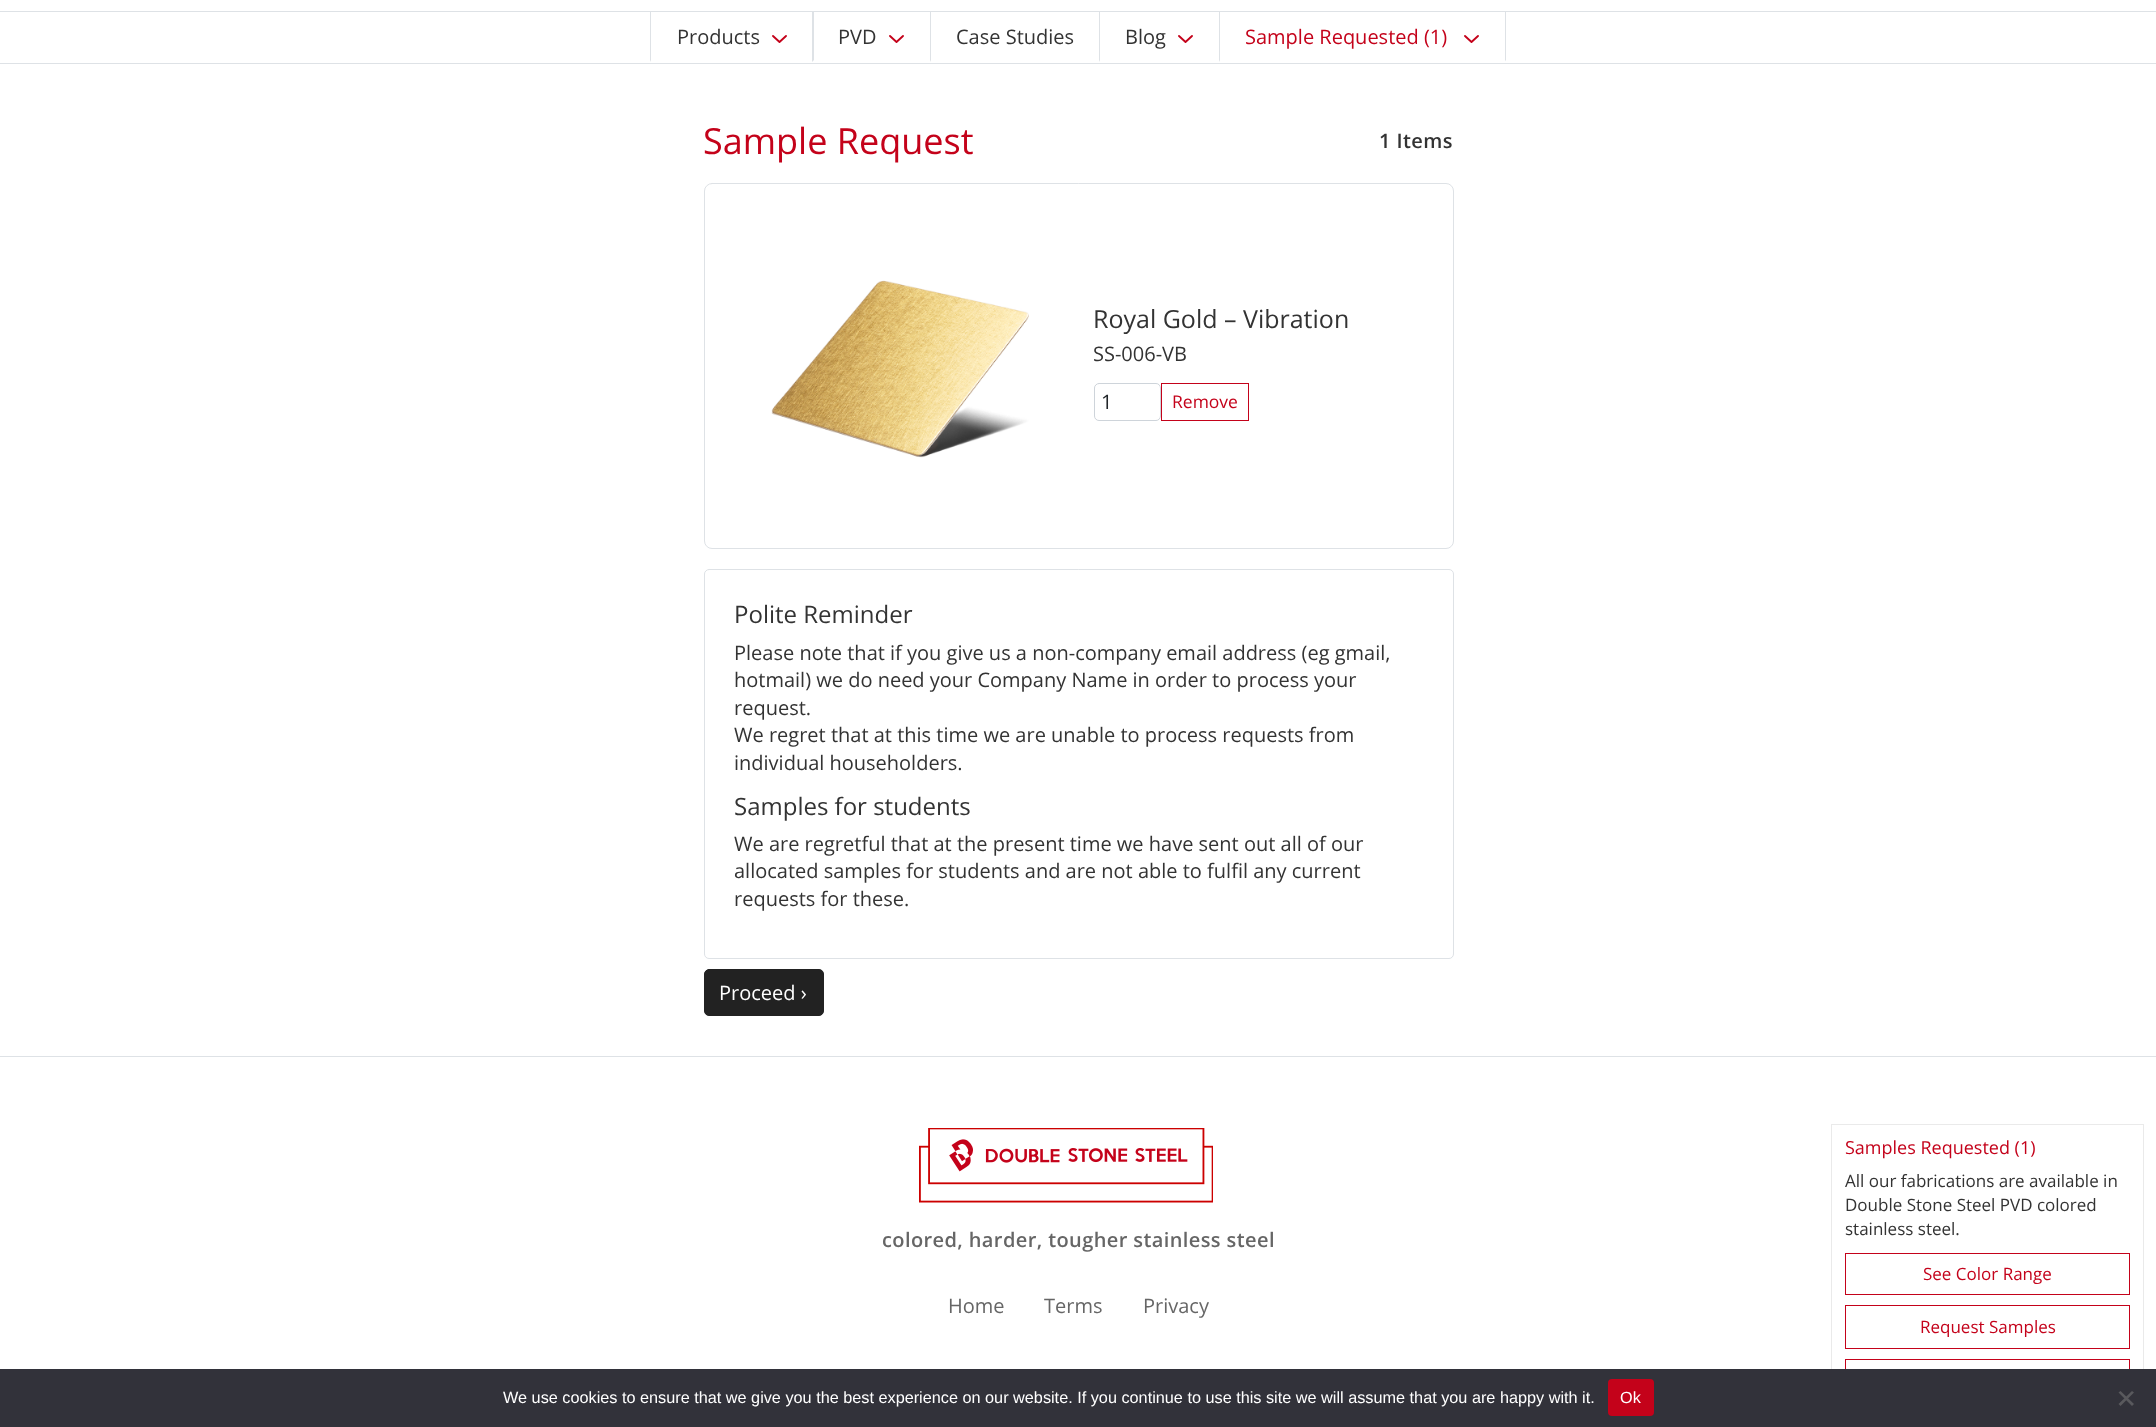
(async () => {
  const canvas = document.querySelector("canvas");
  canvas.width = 2156;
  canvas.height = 1427;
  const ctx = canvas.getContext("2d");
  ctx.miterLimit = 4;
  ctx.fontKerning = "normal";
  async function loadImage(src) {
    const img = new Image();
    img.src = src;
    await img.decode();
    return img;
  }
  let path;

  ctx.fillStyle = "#ffffff";
  ctx.fillRect(0, 0, 2156, 1427);
  ctx.fillStyle = "#dee2e6";
  ctx.fillRect(0, 11, 2156, 1);
  ctx.fillRect(0, 63, 2156, 1);
  path = new Path2D("M650 62V12H651V60Z");
  ctx.fill(path);
  path = new Path2D("M786 36L779.5 42L773 36");
  ctx.strokeStyle = "#c4021a";
  ctx.lineWidth = 1.9;
  ctx.lineCap = "round";
  ctx.lineJoin = "round";
  ctx.stroke(path);
  path = new Path2D("M812 62V12H814V60Z");
  ctx.fill(path);
  path = new Path2D("M903 36L896.5 42L890 36");
  ctx.stroke(path);
  path = new Path2D("M930 62V12H931V60Z");
  ctx.fill(path);
  path = new Path2D("M1099 62V12H1100V60Z");
  ctx.fill(path);
  path = new Path2D("M1192 36L1185.5 42L1179 36");
  ctx.stroke(path);
  path = new Path2D("M1506 12V62L1505 60V12Z");
  ctx.fill(path);
  ctx.fillStyle = "#ffffff";
  path = new Path2D("M1506 62H1219L1220 60H1505Z");
  ctx.fill(path);
  ctx.fillStyle = "#dee2e6";
  path = new Path2D("M1219 62V12H1220V60Z");
  ctx.fill(path);
  path = new Path2D("M1478 36L1471.5 42L1465 36");
  ctx.stroke(path);
  ctx.beginPath();
  ctx.roundRect(704.5, 183.5, 749, 365, 7.5);
  ctx.strokeStyle = "#dee2e6";
  ctx.lineWidth = 1;
  ctx.lineJoin = "miter";
  ctx.stroke();
  ctx.drawImage(await loadImage("img/1.png"), 771, 280, 258, 178);
  ctx.beginPath();
  ctx.roundRect(1094.5, 383.5, 66, 37, 4.5);
  ctx.strokeStyle = "#ced4da";
  ctx.stroke();
  ctx.strokeStyle = "#c4021a";
  ctx.strokeRect(1161.5, 383.5, 87, 37);
  ctx.beginPath();
  ctx.roundRect(704.5, 569.5, 749, 389, 4.5);
  ctx.strokeStyle = "#dee2e6";
  ctx.stroke();
  ctx.fillStyle = "#222222";
  ctx.beginPath();
  ctx.roundRect(704.5, 969.5, 119, 46, 4.5);
  ctx.fill();
  ctx.strokeStyle = "#222222";
  ctx.stroke();
  ctx.fillStyle = "#dee2e6";
  ctx.fillRect(0, 1056, 2156, 1);
  ctx.drawImage(await loadImage("img/2.png"), 919, 1128, 294, 75);
  ctx.strokeStyle = "#eaeaea";
  ctx.strokeRect(1831.5, 1124.5, 312, 290);
  ctx.strokeStyle = "#c4021a";
  ctx.strokeRect(1845.5, 1253.5, 284, 41);
  ctx.strokeRect(1845.5, 1305.5, 284, 43);
  ctx.strokeRect(1845.5, 1359.5, 284, 41);
  ctx.fillStyle = "#32323a";
  ctx.fillRect(0, 1369, 2156, 58);
  ctx.fillStyle = "#c4021a";
  ctx.beginPath();
  ctx.roundRect(1608, 1379, 46, 37, 4);
  ctx.fill();
  ctx.fillStyle = "#59595d";
  path = new Path2D("M2132 1391L2134 1392.5L2120.5 1406L2118.5 1404Z");
  ctx.fill(path);
  path = new Path2D("M2118.5 1392.5L2120.5 1391L2134 1404L2132 1406Z");
  ctx.fill(path);
  ctx.font = "20px Open Sans";
  ctx.fillStyle = "#333333";
  for (const [text, x, y] of [
    ["Products", 677, 44],
    ["PVD", 838, 44],
    ["Case Studies", 956, 44],
    ["Blog", 1125, 44],
  ]) {
    ctx.fillText(text, x, y);
  }
  ctx.fillStyle = "#c4021a";
  ctx.fillText("Sample Requested (1)", 1245, 44);
  ctx.font = "36px Open Sans";
  ctx.fillText("Sample Request", 703, 154);
  ctx.letterSpacing = "0.4px";
  ctx.font = "600 20px Open Sans";
  ctx.fillStyle = "#333333";
  ctx.fillText("1 Items", 1379, 148);
  ctx.letterSpacing = "0px";
  ctx.font = "25px Open Sans";
  ctx.fillText("Royal Gold – Vibration", 1093, 328);
  ctx.font = "20px Open Sans";
  ctx.fillText("SS-006-VB", 1093, 361);
  ctx.fillStyle = "#212529";
  ctx.fillText("1", 1101, 409);
  ctx.font = "17.5px Open Sans";
  ctx.fillStyle = "#c4021a";
  ctx.fillText("Remove", 1172, 408);
  ctx.font = "24px Open Sans";
  ctx.fillStyle = "#333333";
  ctx.fillText("Polite Reminder", 734, 623);
  ctx.font = "20px Open Sans";
  for (const [text, x, y] of [
    ["Please note that if you give us a non-company email address (eg gmail,", 734, 660],
    ["hotmail) we do need your Company Name in order to process your", 734, 687],
    ["request.", 734, 715],
    ["We regret that at this time we are unable to process requests from", 734, 742],
    ["individual householders.", 734, 770],
  ]) {
    ctx.fillText(text, x, y);
  }
  ctx.font = "24px Open Sans";
  ctx.fillText("Samples for students", 734, 815);
  ctx.font = "20px Open Sans";
  for (const [text, x, y] of [
    ["We are regretful that at the present time we have sent out all of our", 734, 851],
    ["allocated samples for students and are not able to fulfil any current", 734, 878],
    ["requests for these.", 734, 906],
  ]) {
    ctx.fillText(text, x, y);
  }
  ctx.fillStyle = "#ffffff";
  ctx.fillText("Proceed ›", 719, 1000);
  ctx.letterSpacing = "0.4px";
  ctx.font = "600 20px Open Sans";
  ctx.fillStyle = "#666666";
  ctx.fillText("colored, harder, tougher stainless steel", 882, 1247);
  ctx.letterSpacing = "0px";
  ctx.font = "20px Open Sans";
  for (const [text, x, y] of [
    ["Home", 948, 1313],
    ["Terms", 1044, 1313],
    ["Privacy", 1143, 1313],
  ]) {
    ctx.fillText(text, x, y);
  }
  ctx.font = "18px Open Sans";
  ctx.fillStyle = "#c4021a";
  ctx.fillText("Samples Requested (1)", 1845, 1154);
  ctx.font = "17px Open Sans";
  ctx.fillStyle = "#333333";
  for (const [text, x, y] of [
    ["All our fabrications are available in", 1845, 1187],
    ["Double Stone Steel PVD colored", 1845, 1211],
    ["stainless steel.", 1845, 1235],
  ]) {
    ctx.fillText(text, x, y);
  }
  ctx.fillStyle = "#c4021a";
  ctx.fillText("See Color Range", 1923, 1280);
  ctx.fillText("Request Samples", 1920, 1333);
  ctx.font = "16.25px Liberation Sans";
  ctx.fillStyle = "#ffffff";
  ctx.fillText("We use cookies to ensure that we give you the best experience on our website. If you continue to use this site we will assume that you are happy with it.", 503, 1403);
  ctx.fillText("Ok", 1620, 1403);
})();
